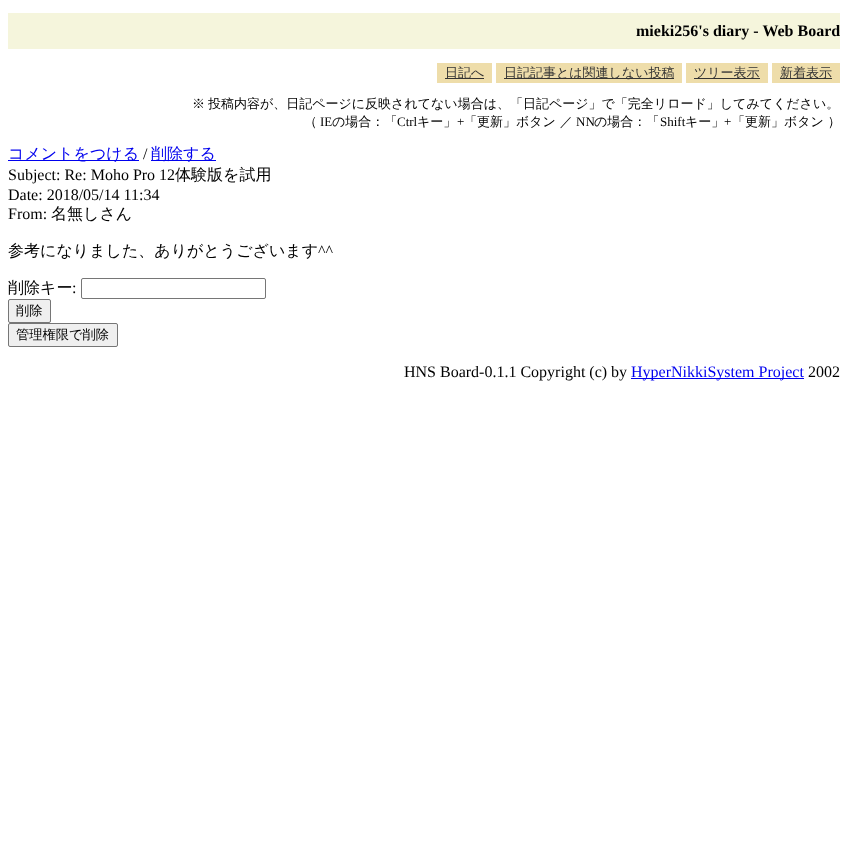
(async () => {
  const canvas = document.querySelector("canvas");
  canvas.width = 848;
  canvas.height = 866;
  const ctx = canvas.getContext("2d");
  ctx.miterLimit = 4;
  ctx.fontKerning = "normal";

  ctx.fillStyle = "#ffffff";
  ctx.fillRect(0, 0, 848, 866);
  for (const [x, y, w, h, color] of [
    [8, 13, 832, 36, "#f5f5dc"],
    [437, 63, 55, 20, "#eeddaa"],
    [445, 78, 39, 1, "#333333"],
    [496, 63, 186, 20, "#eeddaa"],
    [504, 78, 170, 1, "#333333"],
    [686, 63, 82, 20, "#eeddaa"],
    [694, 78, 66, 1, "#333333"],
    [772, 63, 68, 20, "#eeddaa"],
    [780, 78, 52, 1, "#333333"],
    [8, 160, 131, 1, "#0000ee"],
    [151, 160, 65, 1, "#0000ee"],
  ]) {
    ctx.fillStyle = color;
    ctx.fillRect(x, y, w, h);
  }
  ctx.beginPath();
  ctx.roundRect(81.5, 278.5, 184, 20, 1.5);
  ctx.strokeStyle = "#767676";
  ctx.stroke();
  ctx.fillStyle = "#efefef";
  ctx.beginPath();
  ctx.roundRect(8.5, 299.5, 42, 23, 1.5);
  ctx.fill();
  ctx.stroke();
  ctx.beginPath();
  ctx.roundRect(8.5, 323.5, 109, 23, 1.5);
  ctx.fill();
  ctx.stroke();
  ctx.fillStyle = "#0000ee";
  ctx.fillRect(631, 378, 173, 1);
  ctx.font = "bold 16px Liberation Serif";
  ctx.fillStyle = "#000000";
  ctx.fillText("mieki256's diary - Web Board", 636, 36);
  ctx.font = "500 13px WenQuanYi Zen Hei";
  ctx.fillStyle = "#333333";
  for (const [text, x, y] of [
    ["日記へ", 445, 77],
    ["日記記事とは関連しない投稿", 504, 77],
    ["ツリー表示", 694, 77],
    ["新着表示", 780, 77],
  ]) {
    ctx.fillText(text, x, y);
  }
  ctx.wordSpacing = "-1px";
  ctx.fillStyle = "#000000";
  ctx.fillText("※ 投稿内容が、日記ページに反映されてない場合は、「日記ページ」で「完全リロード」してみてください。", 192, 108);
  ctx.wordSpacing = "0px";
  ctx.fillText("（", 304, 126);
  ctx.font = "13px Liberation Serif";
  ctx.fillText("IE", 320, 126);
  ctx.font = "500 13px WenQuanYi Zen Hei";
  ctx.fillText("の場合：「", 332, 126);
  ctx.font = "13px Liberation Serif";
  ctx.fillText("Ctrl", 397, 126);
  ctx.font = "500 13px WenQuanYi Zen Hei";
  ctx.fillText("キー」", 417, 126);
  ctx.font = "13px Liberation Serif";
  ctx.fillText("+", 457, 126);
  ctx.font = "500 13px WenQuanYi Zen Hei";
  ctx.fillText("「更新」ボタン ／", 464, 126);
  ctx.font = "13px Liberation Serif";
  ctx.fillText("NN", 576, 126);
  ctx.font = "500 13px WenQuanYi Zen Hei";
  ctx.fillText("の場合：「", 594, 126);
  ctx.font = "13px Liberation Serif";
  ctx.fillText("Shift", 660, 126);
  ctx.font = "500 13px WenQuanYi Zen Hei";
  ctx.fillText("キー」", 685, 126);
  ctx.font = "13px Liberation Serif";
  ctx.fillText("+", 724, 126);
  ctx.font = "500 13px WenQuanYi Zen Hei";
  ctx.fillText("「更新」ボタン ）", 732, 126);
  ctx.font = "500 16px WenQuanYi Zen Hei";
  ctx.fillStyle = "#0000ee";
  ctx.fillText("コメントをつける", 8, 159);
  ctx.font = "16px Liberation Serif";
  ctx.fillStyle = "#000000";
  ctx.fillText("/", 143, 159);
  ctx.font = "500 16px WenQuanYi Zen Hei";
  ctx.fillStyle = "#0000ee";
  ctx.fillText("削除する", 151, 159);
  ctx.font = "16px Liberation Serif";
  ctx.fillStyle = "#000000";
  ctx.fillText("Subject: Re: Moho Pro 12", 8, 180);
  ctx.font = "500 16px WenQuanYi Zen Hei";
  ctx.fillText("体験版を試用", 175, 180);
  ctx.font = "16px Liberation Serif";
  ctx.fillText("Date: 2018/05/14 11:34", 8, 200);
  ctx.fillText("From:", 8, 219);
  ctx.font = "500 16px WenQuanYi Zen Hei";
  ctx.fillText("名無しさん", 51, 219);
  ctx.fillText("参考になりました、ありがとうございます", 8, 256);
  ctx.font = "16px Liberation Serif";
  ctx.fillText("^^", 318, 256);
  ctx.font = "500 16px WenQuanYi Zen Hei";
  ctx.fillText("削除キー", 8, 293);
  ctx.font = "16px Liberation Serif";
  ctx.fillText(":", 72, 293);
  ctx.font = "500 13.25px WenQuanYi Zen Hei";
  ctx.fillText("削除", 16, 315);
  ctx.fillText("管理権限で削除", 16, 339);
  ctx.font = "16px Liberation Serif";
  ctx.fillText("HNS Board-0.1.1 Copyright (c) by", 404, 377);
  ctx.fillStyle = "#0000ee";
  ctx.fillText("HyperNikkiSystem Project", 631, 377);
  ctx.fillStyle = "#000000";
  ctx.fillText("2002", 808, 377);
})();
